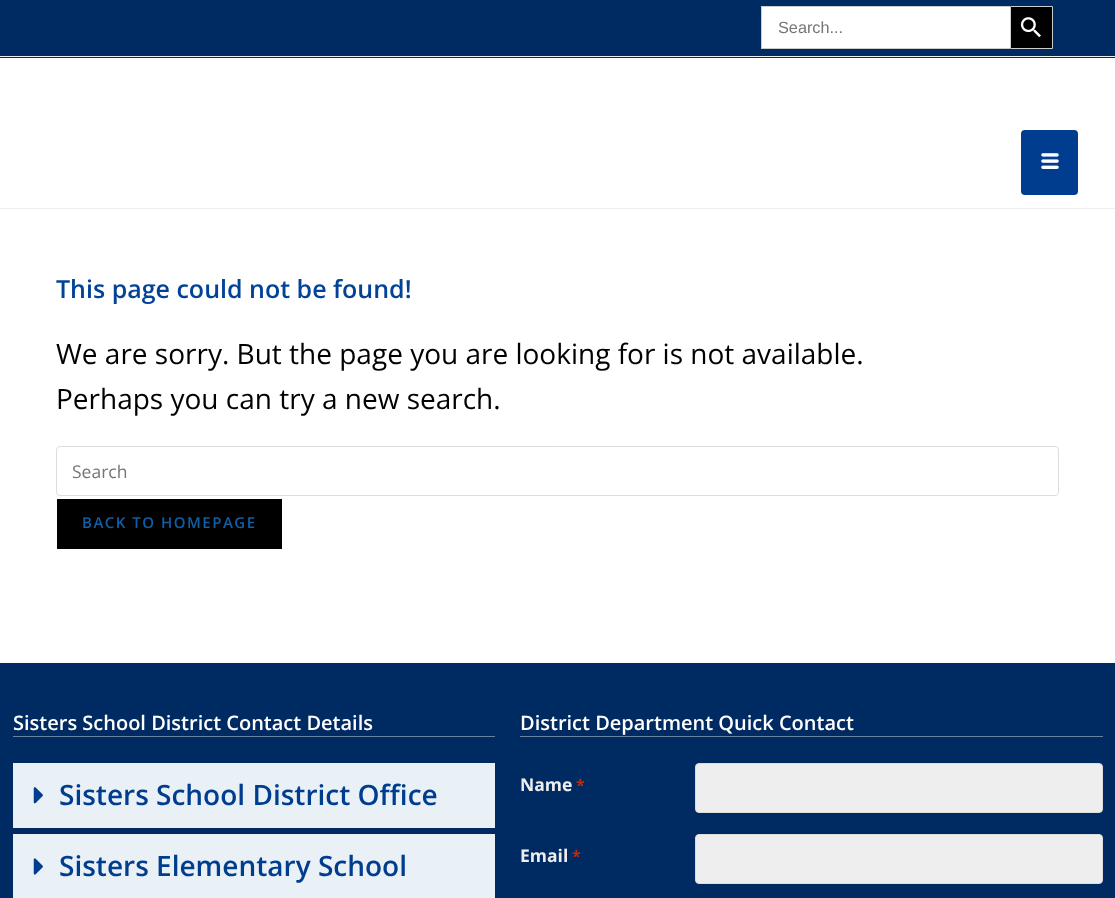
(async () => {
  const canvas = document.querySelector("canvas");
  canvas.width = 1115;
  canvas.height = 898;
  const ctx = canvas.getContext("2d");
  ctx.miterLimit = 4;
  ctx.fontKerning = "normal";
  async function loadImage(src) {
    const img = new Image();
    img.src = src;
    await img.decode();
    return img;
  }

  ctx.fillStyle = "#ffffff";
  ctx.fillRect(0, 0, 1115, 898);
  for (const [x, y, w, h, color] of [
    [0, 0, 1115, 58, "#002a62"],
    [0, 56, 1115, 1, "#ebeff1"],
    [762, 7, 248, 41, "#ffffff"],
    [761, 6, 249, 1, "#cccccc"],
    [761, 48, 249, 1, "#cccccc"],
    [761, 6, 1, 43, "#cccccc"],
  ]) {
    ctx.fillStyle = color;
    ctx.fillRect(x, y, w, h);
  }
  ctx.fillStyle = "#000000";
  ctx.beginPath();
  ctx.rect(1010.5, 6.5, 42, 42);
  ctx.fill();
  ctx.strokeStyle = "#cccccc";
  ctx.stroke();
  ctx.drawImage(await loadImage("img/1.png"), 1020, 17, 21, 21);
  ctx.fillStyle = "#ebeff1";
  ctx.fillRect(0, 208, 1115, 1);
  ctx.fillStyle = "#003d8f";
  ctx.beginPath();
  ctx.roundRect(1021, 130, 57, 65, 4);
  ctx.fill();
  ctx.drawImage(await loadImage("img/2.png"), 1041, 153, 18, 16);
  ctx.beginPath();
  ctx.roundRect(56.5, 446.5, 1002, 49, 3.5);
  ctx.strokeStyle = "#dddddd";
  ctx.stroke();
  for (const [x, y, w, h, color] of [
    [57, 499, 225, 50, "#000000"],
    [0, 663, 1115, 235, "#002a62"],
    [13, 736, 482, 1, "#6781a1"],
    [13, 763, 482, 65, "#e9f0f6"],
  ]) {
    ctx.fillStyle = color;
    ctx.fillRect(x, y, w, h);
  }
  ctx.drawImage(await loadImage("img/3.png"), 33, 787, 10, 17);
  ctx.fillRect(13, 834, 482, 64);
  ctx.drawImage(await loadImage("img/4.png"), 33, 858, 10, 17);
  ctx.fillStyle = "#6781a1";
  ctx.fillRect(520, 736, 583, 1);
  ctx.fillStyle = "#eeeeee";
  ctx.beginPath();
  ctx.roundRect(695.5, 763.5, 407, 49, 3.5);
  ctx.fill();
  ctx.stroke();
  ctx.beginPath();
  ctx.roundRect(695.5, 834.5, 407, 49, 3.5);
  ctx.fill();
  ctx.stroke();
  ctx.font = "16.25px Liberation Sans";
  ctx.fillStyle = "#757575";
  ctx.fillText("Search...", 778, 33);
  ctx.font = "600 25px Open Sans";
  ctx.fillStyle = "#024398";
  ctx.fillText("This page could not be found!", 56, 298);
  ctx.font = "28px Open Sans";
  ctx.fillStyle = "#000000";
  ctx.fillText("We are sorry. But the page you are looking for is not available.", 56, 364);
  ctx.fillText("Perhaps you can try a new search.", 56, 409);
  ctx.font = "17.5px Open Sans";
  ctx.fillStyle = "#757575";
  ctx.fillText("Search", 72, 478);
  ctx.letterSpacing = "1.5px";
  ctx.font = "600 15px Open Sans";
  ctx.fillStyle = "#0f5fa6";
  ctx.fillText("BACK TO HOMEPAGE", 82, 528);
  ctx.letterSpacing = "0px";
  ctx.font = "600 20px Open Sans";
  ctx.fillStyle = "#ffffff";
  ctx.fillText("Sisters School District Contact Details", 13, 730);
  ctx.font = "600 28px Open Sans";
  ctx.fillStyle = "#003d8f";
  ctx.fillText("Sisters School District Office", 59, 805);
  ctx.fillText("Sisters Elementary School", 59, 876);
  ctx.font = "600 20px Open Sans";
  ctx.fillStyle = "#ffffff";
  ctx.fillText("District Department Quick Contact", 520, 730);
  ctx.font = "bold 17.5px Open Sans";
  ctx.fillStyle = "#eeeeee";
  ctx.fillText("Name", 520, 791);
  ctx.font = "bold 16px Open Sans";
  ctx.fillStyle = "#c02b0a";
  ctx.fillText("*", 576, 791);
  ctx.font = "bold 17.5px Open Sans";
  ctx.fillStyle = "#eeeeee";
  ctx.fillText("Email", 520, 862);
  ctx.font = "bold 16px Open Sans";
  ctx.fillStyle = "#c02b0a";
  ctx.fillText("*", 572, 862);
})();
